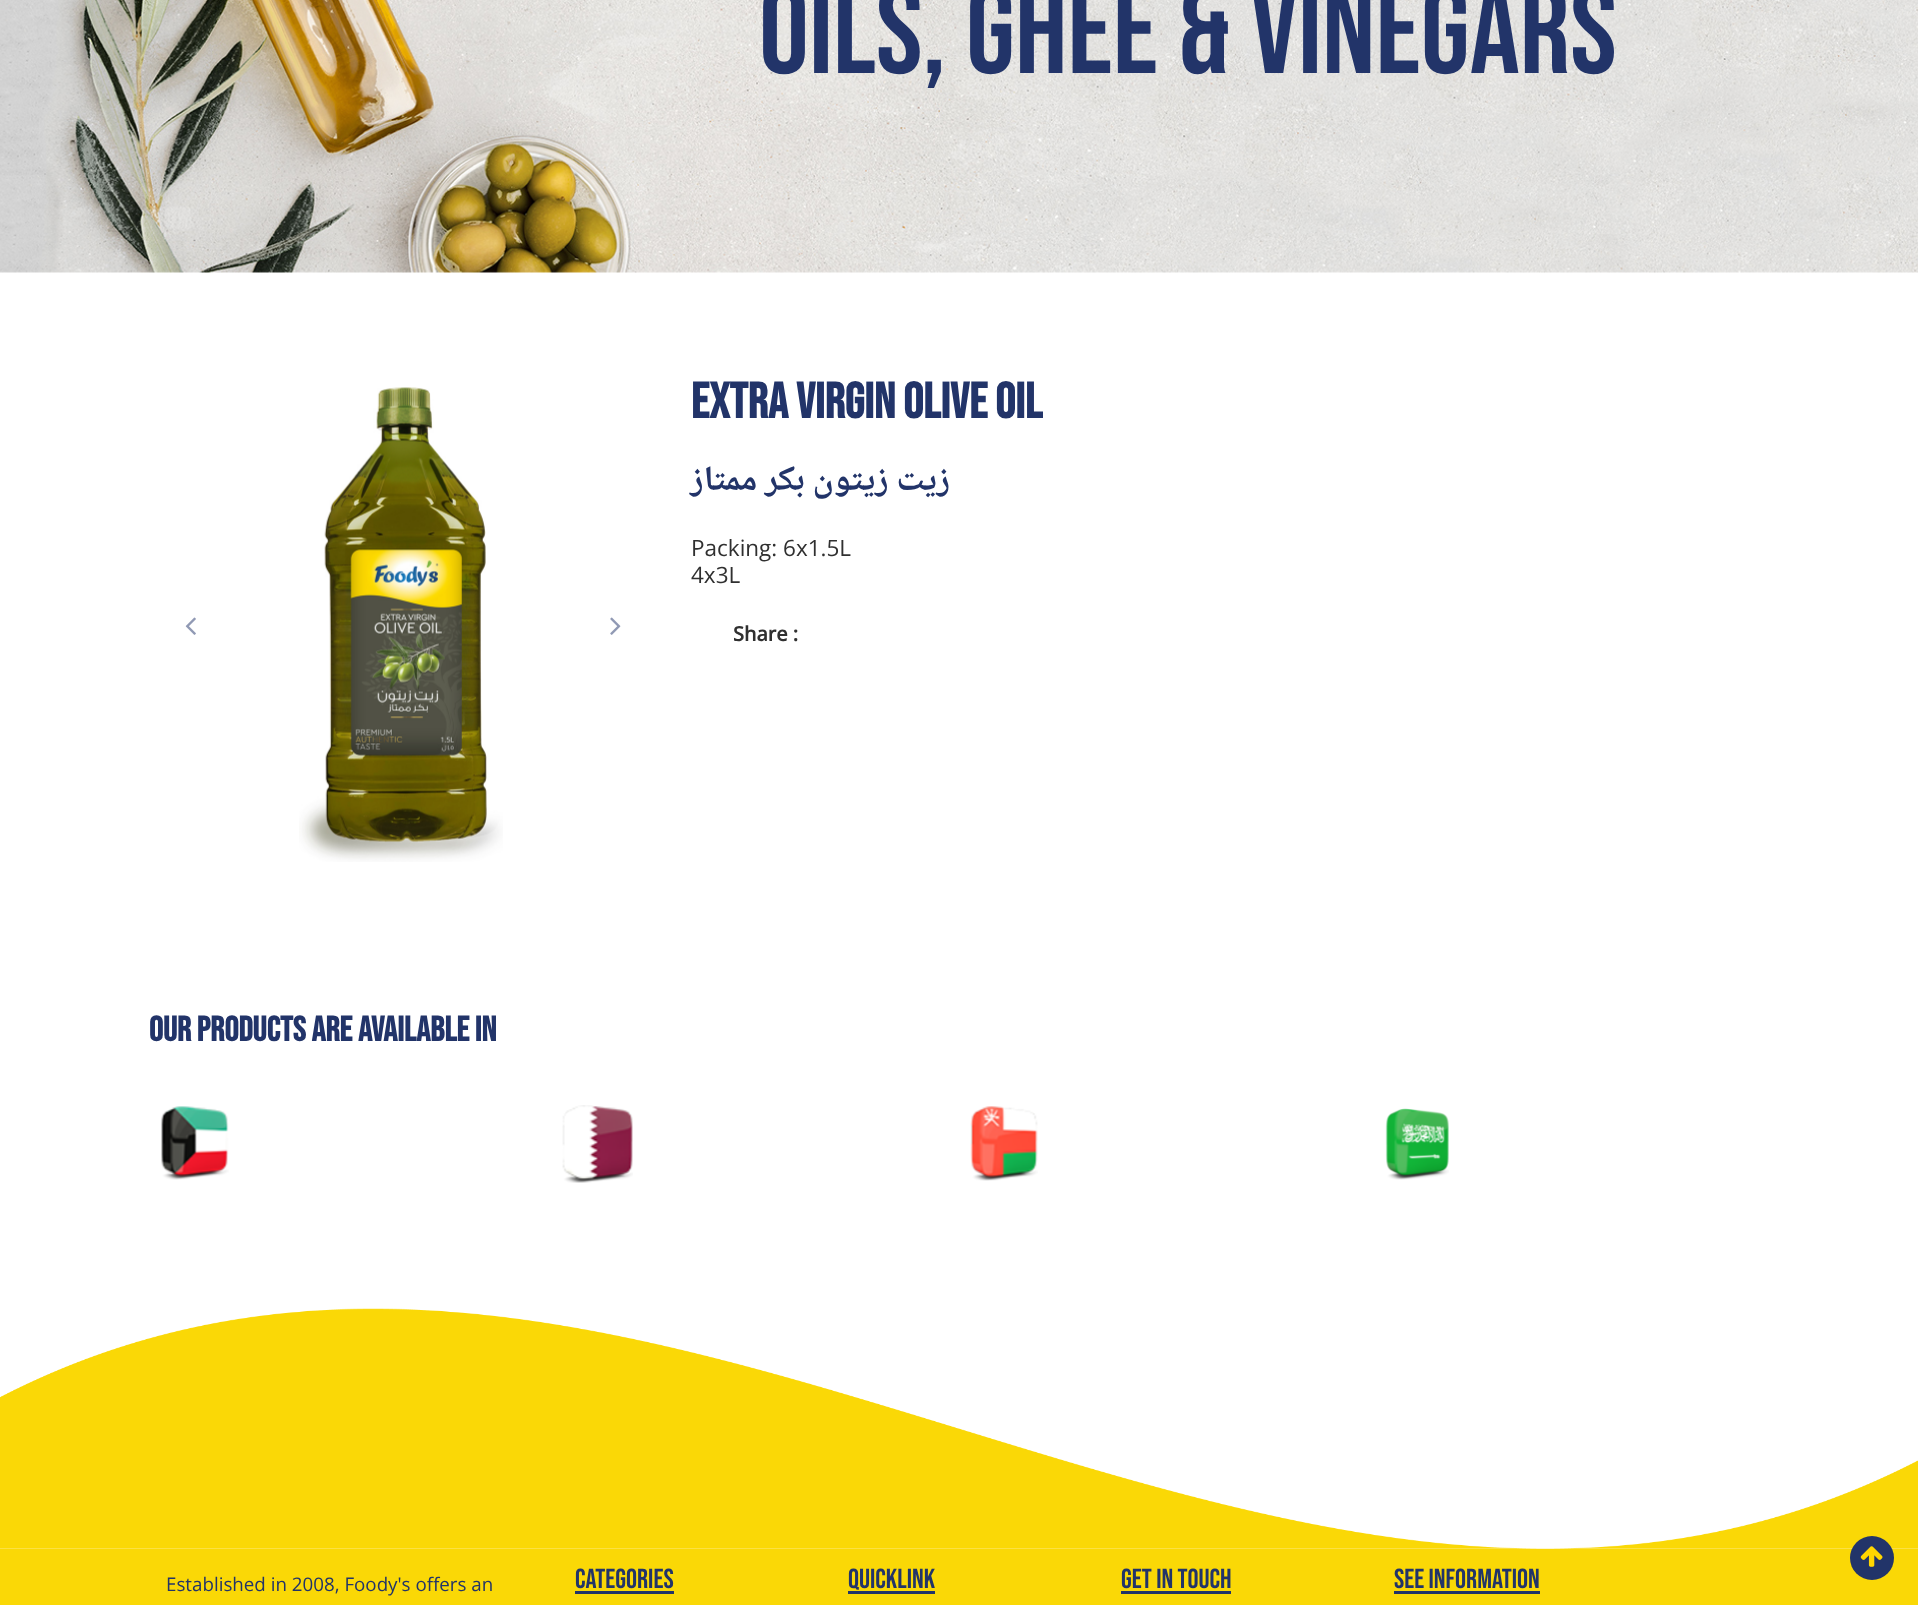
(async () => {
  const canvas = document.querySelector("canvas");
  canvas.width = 1918;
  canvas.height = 1605;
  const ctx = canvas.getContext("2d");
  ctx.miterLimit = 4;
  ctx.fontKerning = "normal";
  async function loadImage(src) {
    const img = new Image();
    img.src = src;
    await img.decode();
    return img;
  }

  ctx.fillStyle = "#ffffff";
  ctx.fillRect(0, 0, 1918, 1605);
  ctx.drawImage(await loadImage("img/1.png"), 0, 0, 1918, 273);
  ctx.drawImage(await loadImage("img/2.png"), 185, 617, 11, 18);
  ctx.drawImage(await loadImage("img/3.png"), 299, 387, 204, 475);
  ctx.drawImage(await loadImage("img/4.png"), 610, 617, 11, 18);
  ctx.drawImage(await loadImage("img/5.png"), 161, 1106, 68, 74);
  ctx.drawImage(await loadImage("img/6.png"), 562, 1105, 71, 78);
  ctx.drawImage(await loadImage("img/7.png"), 970, 1106, 68, 75);
  ctx.drawImage(await loadImage("img/8.png"), 1385, 1108, 64, 72);
  ctx.drawImage(await loadImage("img/9.png"), 0, 1308, 1918, 241);
  for (const [x, y, w, h, color] of [
    [0, 1549, 1918, 56, "#fad806"],
    [575, 1591, 99, 3, "#223469"],
    [848, 1591, 87, 3, "#223469"],
    [1121, 1591, 110, 3, "#223469"],
    [1394, 1591, 146, 3, "#223469"],
  ]) {
    ctx.fillStyle = color;
    ctx.fillRect(x, y, w, h);
  }
  ctx.beginPath();
  ctx.arc(1872, 1558, 22, 0, Math.PI * 2);
  ctx.fill();
  ctx.drawImage(await loadImage("img/10.png"), 1860, 1546, 23, 21);
  ctx.font = "125px Bebas Neue";
  ctx.fillText("OILS, GHEE & VINEGARS", 759, 73);
  ctx.font = "bold 50px Bebas Neue";
  ctx.fillText("Extra Virgin Olive Oil", 691, 418);
  ctx.direction = "rtl";
  ctx.font = "bold 35px Noto Naskh Arabic";
  ctx.fillText("زيت زيتون بكر ممتاز", 950, 490);
  ctx.direction = "ltr";
  ctx.font = "22.5px Open Sans";
  ctx.fillStyle = "#303030";
  ctx.fillText("Packing: 6x1.5L", 691, 556);
  ctx.fillText("4x3L", 691, 583);
  ctx.font = "bold 20px Open Sans";
  ctx.fillText("Share :", 733, 641);
  ctx.font = "bold 35px Bebas Neue";
  ctx.fillStyle = "#223469";
  ctx.fillText("Our Products Are Available In", 149, 1041);
  ctx.font = "18.75px Open Sans";
  ctx.fillText("Established in 2008, Foody's offers an", 166, 1591);
  ctx.font = "27.5px Bebas Neue";
  for (const [text, x, y] of [
    ["CATEGORIES", 575, 1588],
    ["Quicklink", 848, 1588],
    ["GET IN TOUCH", 1121, 1588],
    ["See Information", 1394, 1588],
  ]) {
    ctx.fillText(text, x, y);
  }
})();
